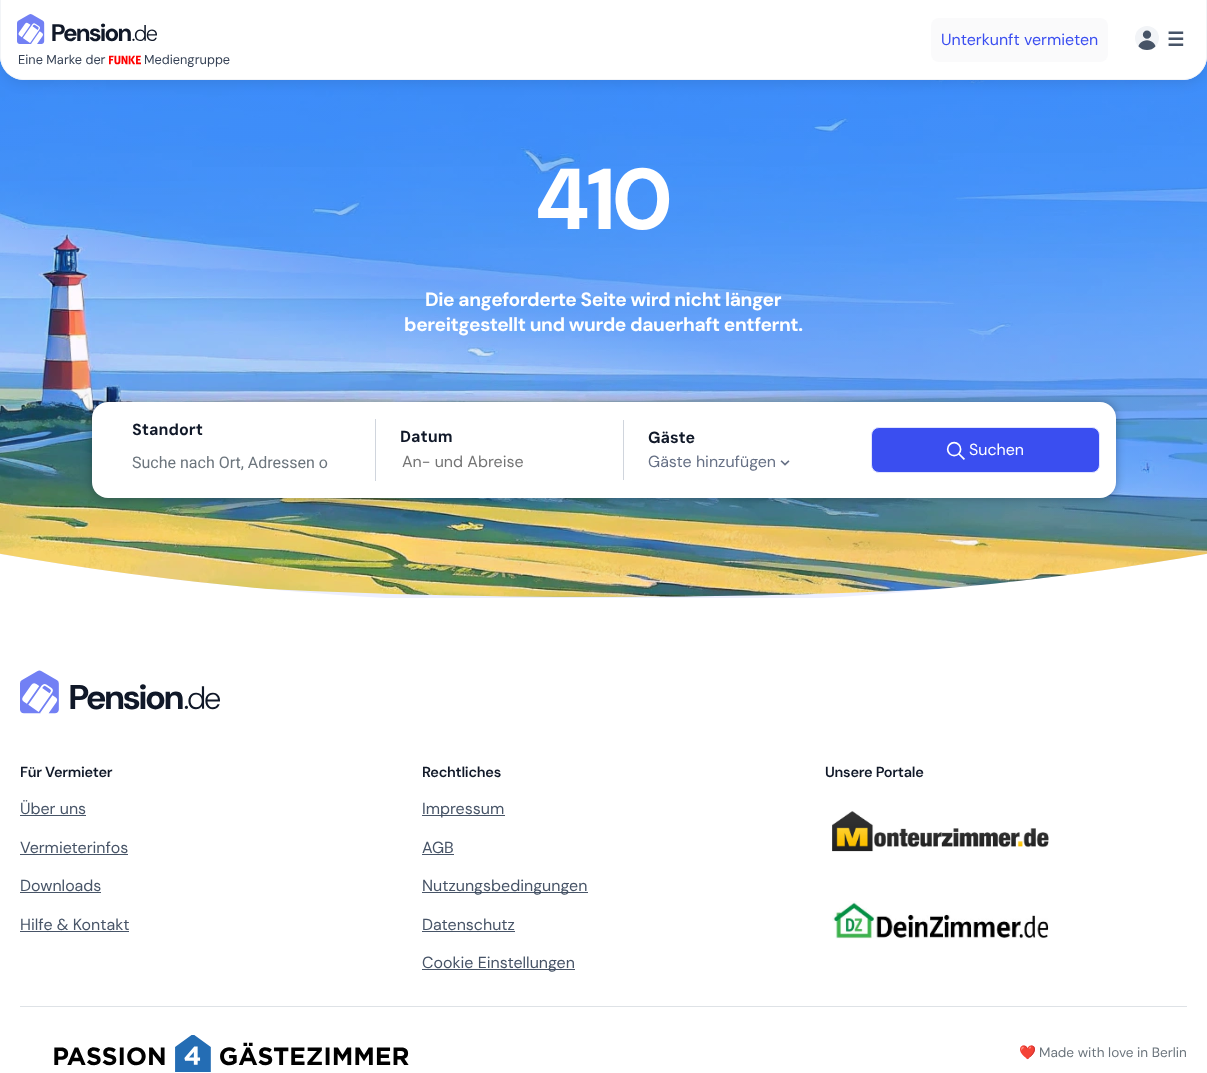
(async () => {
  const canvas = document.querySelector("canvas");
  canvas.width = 1207;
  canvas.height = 1073;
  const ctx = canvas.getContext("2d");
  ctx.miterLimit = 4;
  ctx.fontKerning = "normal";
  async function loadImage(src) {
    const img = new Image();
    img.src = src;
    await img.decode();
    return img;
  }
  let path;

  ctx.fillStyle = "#ffffff";
  ctx.fillRect(0, 0, 1207, 1073);
  ctx.fillStyle = "#edefff";
  path = new Path2D("M0 0H1207V554C1086 575 956 590 821 598H386C251 590 121 575 0 554Z");
  ctx.fill(path);
  ctx.drawImage(await loadImage("img/4.png"), 0, 56, 1207, 541);
  ctx.fillStyle = "rgba(0, 0, 0, 0.08)";
  ctx.filter = "blur(6px)";
  ctx.beginPath();
  ctx.roundRect(0, 4, 1207, 80, 24);
  ctx.fill();
  ctx.filter = "none";
  ctx.fillStyle = "#ffffff";
  ctx.beginPath();
  ctx.roundRect(0, 0, 1207, 80, [0, 0, 24, 24]);
  ctx.fill();
  ctx.fillStyle = "#f2f4f7";
  path = new Path2D("M0 0H1207V56C1207 69 1196 80 1183 80H24C11 80 0 69 0 56ZM1 0H1206V56C1206 69 1196 79 1183 79H24C11 79 1 69 1 56Z");
  ctx.fill(path, "evenodd");
  ctx.fillStyle = "#fafafb";
  ctx.beginPath();
  ctx.roundRect(931, 18, 177, 44, 8);
  ctx.fill();
  ctx.drawImage(await loadImage("img/1.png"), 1135, 26, 24, 24);
  ctx.drawImage(await loadImage("img/2.png"), 17, 14, 140, 30);
  ctx.drawImage(await loadImage("img/3.png"), 109, 55, 32, 10);
  ctx.fillStyle = "rgba(0, 0, 0, 0.3)";
  ctx.filter = "blur(5px)";
  ctx.beginPath();
  ctx.roundRect(92, 402, 1024, 96, 16);
  ctx.fill();
  ctx.filter = "none";
  ctx.fillStyle = "#ffffff";
  ctx.beginPath();
  ctx.roundRect(92, 402, 1024, 96, 16);
  ctx.fill();
  ctx.fillStyle = "#d0d5dd";
  ctx.fillRect(375, 419, 1, 62);
  ctx.fillRect(623, 420, 1, 60);
  ctx.drawImage(await loadImage("img/5.png"), 780, 460, 10, 6);
  ctx.fillStyle = "#3a4ef0";
  ctx.beginPath();
  ctx.roundRect(871.5, 427.5, 228, 45, 7.5);
  ctx.fill();
  ctx.strokeStyle = "#e1e4ff";
  ctx.stroke();
  ctx.drawImage(await loadImage("img/6.png"), 946, 441, 19, 19);
  ctx.drawImage(await loadImage("img/7.png"), 20, 670, 200, 44);
  for (const [x, y, w, h, color] of [
    [20, 815, 66, 1, "#475467"],
    [20, 854, 108, 1, "#475467"],
    [20, 892, 81, 1, "#475467"],
    [20, 931, 109, 1, "#475467"],
    [422, 815, 83, 1, "#475467"],
    [422, 854, 32, 1, "#475467"],
    [422, 892, 166, 1, "#475467"],
    [422, 931, 93, 1, "#475467"],
    [422, 969, 153, 1, "#475467"],
  ]) {
    ctx.fillStyle = color;
    ctx.fillRect(x, y, w, h);
  }
  ctx.drawImage(await loadImage("img/8.png"), 832, 811, 217, 41);
  ctx.drawImage(await loadImage("img/9.png"), 832, 901, 217, 38);
  ctx.fillStyle = "#dee2e6";
  ctx.fillRect(20, 1006, 1167, 1);
  ctx.drawImage(await loadImage("img/10.png"), 54, 1035, 355, 37);
  ctx.font = "16px DM Sans";
  ctx.fillStyle = "#3a4ef0";
  ctx.fillText("Unterkunft vermieten", 941, 45);
  ctx.font = "bold 19.2px DejaVu Sans";
  ctx.fillStyle = "#475467";
  ctx.fillText("☰", 1167, 46);
  ctx.font = "12.75px 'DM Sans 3'";
  ctx.fillStyle = "#344054";
  ctx.fillText("Eine Marke der", 18, 64);
  ctx.fillText("Mediengruppe", 144, 64);
  ctx.letterSpacing = "-2px";
  ctx.font = "bold 86px DM Sans";
  ctx.fillStyle = "#ffffff";
  ctx.fillText("410", 536, 229);
  ctx.letterSpacing = "-0.4px";
  ctx.font = "bold 19.2px 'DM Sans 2'";
  ctx.fillText("Die angeforderte Seite wird nicht länger", 425, 306);
  ctx.fillText("bereitgestellt und wurde dauerhaft entfernt.", 404, 331);
  ctx.letterSpacing = "0px";
  ctx.font = "bold 16px 'DM Sans 3'";
  ctx.fillStyle = "#101828";
  ctx.fillText("Standort", 132, 435);
  ctx.font = "16px Roboto";
  ctx.fillStyle = "#6c757d";
  ctx.fillText("Suche nach Ort, Adressen o", 132, 468);
  ctx.font = "bold 16px 'DM Sans 3'";
  ctx.fillStyle = "#101828";
  ctx.fillText("Datum", 400, 442);
  ctx.font = "16px DM Sans";
  ctx.fillStyle = "#757575";
  ctx.fillText("An- und Abreise", 402, 467);
  ctx.font = "bold 16px 'DM Sans 3'";
  ctx.fillStyle = "#101828";
  ctx.fillText("Gäste", 648, 443);
  ctx.font = "16px DM Sans";
  ctx.fillStyle = "#667085";
  ctx.fillText("Gäste hinzufügen", 648, 467);
  ctx.fillStyle = "#ffffff";
  ctx.fillText("Suchen", 969, 455);
  ctx.letterSpacing = "-0.25px";
  ctx.font = "600 14.5px DM Sans";
  ctx.fillStyle = "#101828";
  ctx.fillText("Für Vermieter", 20, 777);
  ctx.letterSpacing = "0px";
  ctx.font = "16px DM Sans";
  ctx.fillStyle = "#475467";
  for (const [text, x, y] of [
    ["Über uns", 20, 814],
    ["Vermieterinfos", 20, 853],
    ["Downloads", 20, 891],
    ["Hilfe & Kontakt", 20, 930],
  ]) {
    ctx.fillText(text, x, y);
  }
  ctx.letterSpacing = "-0.25px";
  ctx.font = "600 14.5px DM Sans";
  ctx.fillStyle = "#101828";
  ctx.fillText("Rechtliches", 422, 777);
  ctx.letterSpacing = "0px";
  ctx.font = "16px DM Sans";
  ctx.fillStyle = "#475467";
  for (const [text, x, y] of [
    ["Impressum", 422, 814],
    ["AGB", 422, 853],
    ["Nutzungsbedingungen", 422, 891],
    ["Datenschutz", 422, 930],
    ["Cookie Einstellungen", 422, 968],
  ]) {
    ctx.fillText(text, x, y);
  }
  ctx.letterSpacing = "-0.25px";
  ctx.font = "600 14.5px DM Sans";
  ctx.fillStyle = "#101828";
  ctx.fillText("Unsere Portale", 825, 777);
  ctx.letterSpacing = "0px";
  ctx.font = "13.6px Noto Color Emoji";
  ctx.fillStyle = "#6c757d";
  ctx.fillText("❤️", 1019, 1057);
  ctx.font = "13.6px 'DM Sans 2'";
  ctx.fillText("Made with love in Berlin", 1039, 1057);
})();
